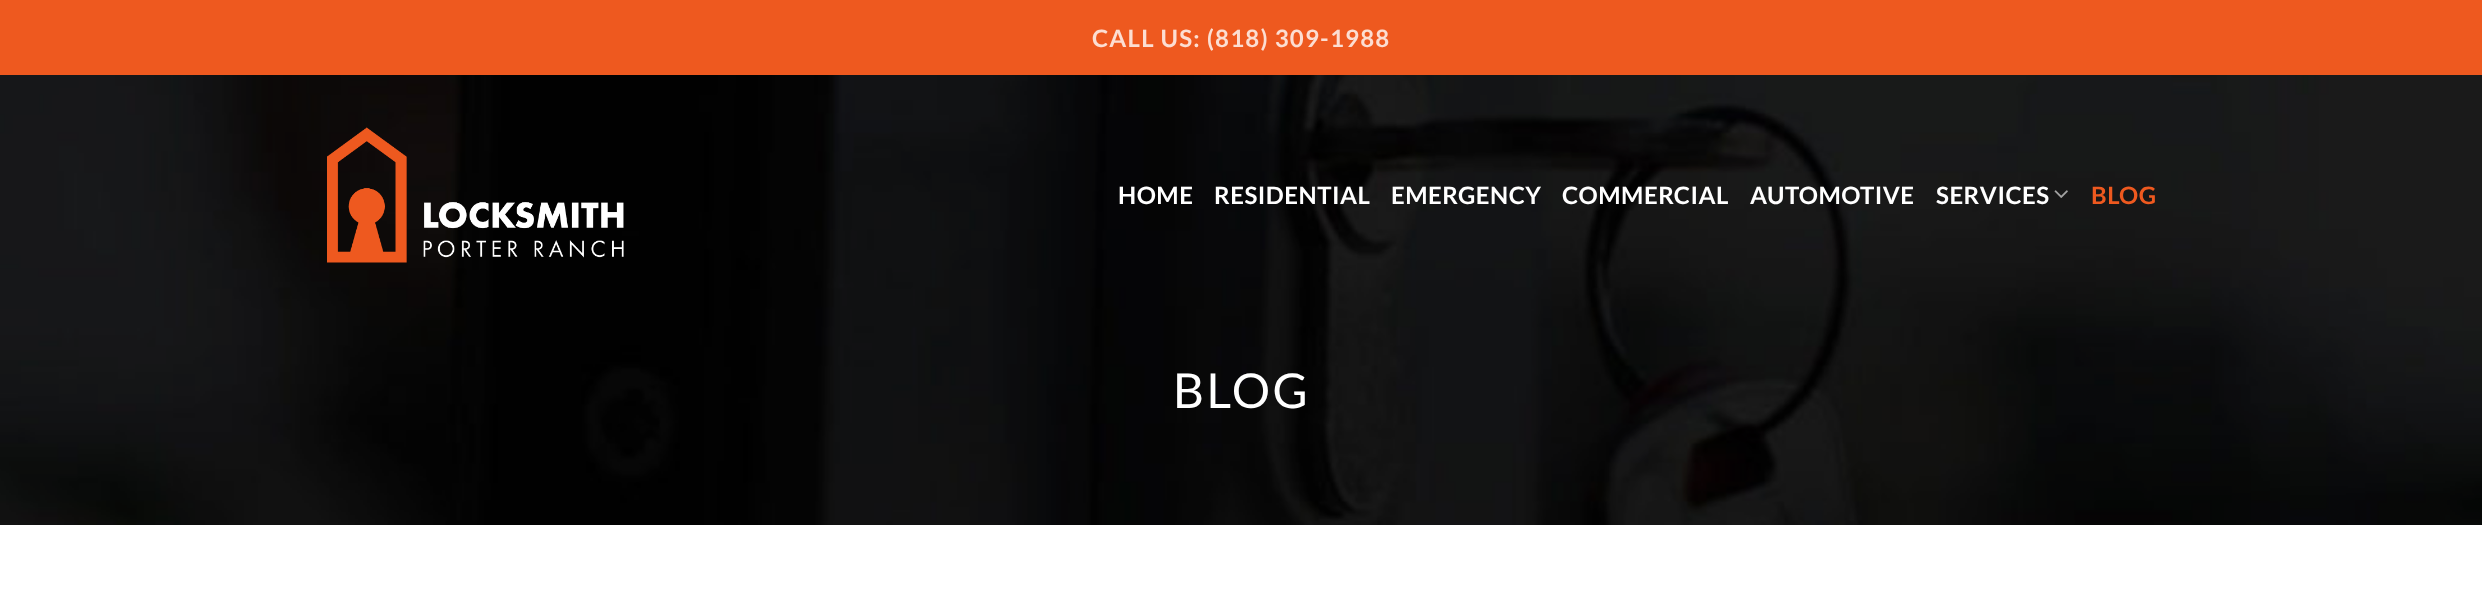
(async () => {
  const canvas = document.querySelector("canvas");
  canvas.width = 2482;
  canvas.height = 595;
  const ctx = canvas.getContext("2d");
  ctx.miterLimit = 4;
  ctx.fontKerning = "normal";
  async function loadImage(src) {
    const img = new Image();
    img.src = src;
    await img.decode();
    return img;
  }

  ctx.fillStyle = "#ffffff";
  ctx.fillRect(0, 0, 2482, 595);
  ctx.fillStyle = "#ee591f";
  ctx.fillRect(0, 0, 2482, 75);
  ctx.drawImage(await loadImage("img/3.png"), 0, 75, 2482, 450);
  ctx.drawImage(await loadImage("img/1.png"), 327, 127, 297, 136);
  ctx.drawImage(await loadImage("img/2.png"), 2054, 190, 14, 8);
  ctx.letterSpacing = "1.2px";
  ctx.font = "bold 24px Lato";
  ctx.fillStyle = "#fcded2";
  ctx.fillText("CALL US: (818) 309-1988", 1092, 47);
  ctx.letterSpacing = "0.5px";
  ctx.fillStyle = "#ffffff";
  for (const [text, x, y] of [
    ["HOME", 1118, 204],
    ["RESIDENTIAL", 1214, 204],
    ["EMERGENCY", 1391, 204],
    ["COMMERCIAL", 1562, 204],
    ["AUTOMOTIVE", 1750, 204],
    ["SERVICES", 1936, 204],
  ]) {
    ctx.fillText(text, x, y);
  }
  ctx.fillStyle = "#ee591f";
  ctx.fillText("BLOG", 2091, 204);
  ctx.letterSpacing = "2.5px";
  ctx.font = "48px Lato";
  ctx.fillStyle = "#ffffff";
  ctx.fillText("BLOG", 1173, 408);
})();
